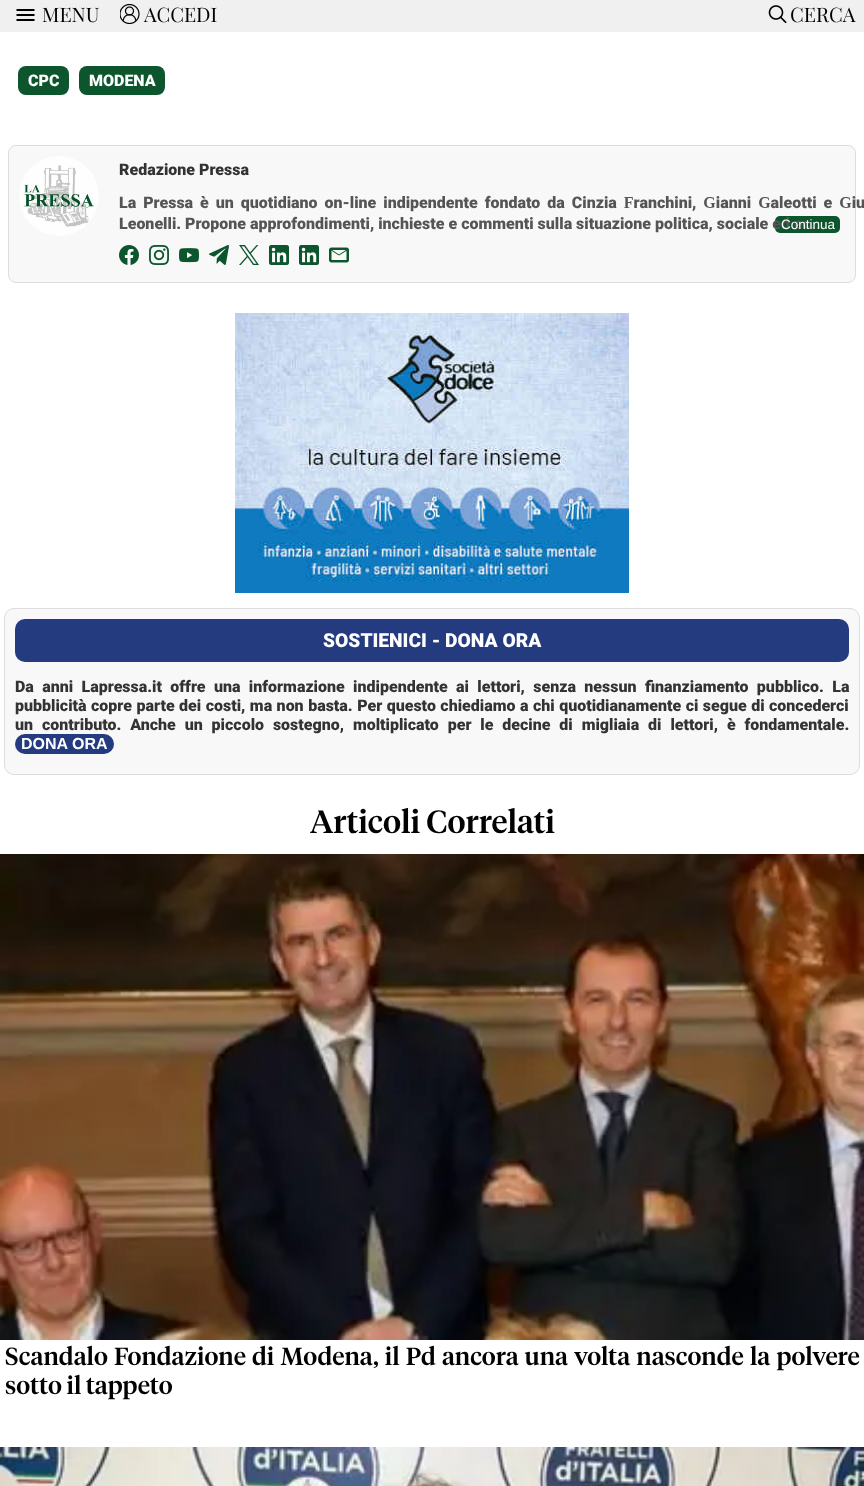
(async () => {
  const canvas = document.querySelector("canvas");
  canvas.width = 864;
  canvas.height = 1486;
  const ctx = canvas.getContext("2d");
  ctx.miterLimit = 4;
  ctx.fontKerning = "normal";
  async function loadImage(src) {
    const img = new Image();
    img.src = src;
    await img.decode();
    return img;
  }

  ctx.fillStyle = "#ffffff";
  ctx.fillRect(0, 0, 864, 1486);
  ctx.fillStyle = "#f0f0f0";
  ctx.fillRect(0, 0, 864, 32);
  ctx.drawImage(await loadImage("img/1.png"), 16, 9, 19, 12);
  ctx.drawImage(await loadImage("img/2.png"), 120, 4, 20, 20);
  ctx.drawImage(await loadImage("img/3.png"), 768, 5, 19, 19);
  ctx.fillStyle = "#0c552d";
  ctx.beginPath();
  ctx.roundRect(18, 66, 51, 29, 8);
  ctx.fill();
  ctx.beginPath();
  ctx.roundRect(79, 66, 86, 29, 8);
  ctx.fill();
  ctx.fillStyle = "#f8f8f8";
  ctx.beginPath();
  ctx.roundRect(8.5, 145.5, 847, 137, 7.5);
  ctx.fill();
  ctx.strokeStyle = "#dddddd";
  ctx.stroke();
  ctx.drawImage(await loadImage("img/4.png"), 19, 156, 80, 80);
  ctx.fillStyle = "#0c552d";
  ctx.beginPath();
  ctx.roundRect(775, 216, 65, 17, 5);
  ctx.fill();
  ctx.drawImage(await loadImage("img/5.png"), 119, 245, 20, 20);
  ctx.drawImage(await loadImage("img/6.png"), 149, 245, 20, 20);
  ctx.drawImage(await loadImage("img/7.png"), 179, 248, 20, 15);
  ctx.drawImage(await loadImage("img/8.png"), 209, 245, 20, 20);
  ctx.drawImage(await loadImage("img/9.png"), 239, 245, 20, 20);
  ctx.drawImage(await loadImage("img/10.png"), 269, 245, 20, 20);
  ctx.drawImage(await loadImage("img/10.png"), 299, 245, 20, 20);
  ctx.drawImage(await loadImage("img/11.png"), 329, 247, 20, 16);
  ctx.drawImage(await loadImage("img/12.png"), 235, 313, 394, 280);
  ctx.fillStyle = "#f8f8f8";
  ctx.beginPath();
  ctx.roundRect(4.5, 608.5, 855, 166, 9.5);
  ctx.fill();
  ctx.stroke();
  ctx.fillStyle = "#253b80";
  ctx.beginPath();
  ctx.roundRect(15, 619, 834, 43, 10);
  ctx.fill();
  ctx.beginPath();
  ctx.roundRect(15, 734, 99, 20, 10);
  ctx.fill();
  ctx.drawImage(await loadImage("img/13.png"), 0, 854, 864, 486);
  ctx.drawImage(await loadImage("img/14.png"), 0, 1447, 864, 39);
  ctx.font = "20px Playfair Display";
  ctx.fillStyle = "#000000";
  for (const [text, x, y] of [
    ["MENU", 42, 22],
    ["ACCEDI", 144, 22],
    ["CERCA", 790, 22],
  ]) {
    ctx.fillText(text, x, y);
  }
  ctx.font = "900 16px Roboto";
  ctx.fillStyle = "#ffffff";
  ctx.fillText("CPC", 28, 86);
  ctx.fillText("MODENA", 89, 86);
  ctx.font = "bold 17.5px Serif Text";
  ctx.fillStyle = "#333333";
  ctx.fillText("Redazione Pressa", 119, 175);
  ctx.wordSpacing = "3px";
  ctx.font = "14.08px Serif Text";
  ctx.fillStyle = "#555555";
  ctx.fillText("La Pressa è un quotidiano on-line indipendente fondato da Cinzia Franchini, Gianni Galeotti e Giuseppe", 119, 208);
  ctx.wordSpacing = "0px";
  ctx.fillText("Leonelli. Propone approfondimenti, inchieste e commenti sulla situazione politica, sociale ed ec...", 119, 229);
  ctx.font = "13.5px Liberation Sans";
  ctx.fillStyle = "#ffffff";
  ctx.fillText("Continua", 781, 229);
  ctx.font = "900 19.25px Roboto";
  ctx.fillText("SOSTIENICI - DONA ORA", 323, 647);
  ctx.wordSpacing = "4.4px";
  ctx.font = "900 16px Roboto";
  ctx.fillStyle = "#333333";
  ctx.fillText("Da anni Lapressa.it offre una informazione indipendente ai lettori, senza nessun finanziamento pubblico. La", 15, 692);
  ctx.wordSpacing = "0.5px";
  ctx.fillText("pubblicità copre parte dei costi, ma non basta. Per questo chiediamo a chi quotidianamente ci segue di concederci", 15, 711);
  ctx.wordSpacing = "4.9px";
  ctx.fillText("un contributo. Anche un piccolo sostegno, moltiplicato per le decine di migliaia di lettori, è fondamentale.", 15, 730);
  ctx.wordSpacing = "0px";
  ctx.font = "bold 16px Liberation Sans";
  ctx.fillStyle = "#ffffff";
  ctx.fillText("DONA ORA", 21, 749);
  ctx.font = "500 32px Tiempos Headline";
  ctx.fillStyle = "#000000";
  ctx.fillText("Articoli Correlati", 310, 833);
  ctx.wordSpacing = "1.5px";
  ctx.font = "500 24.65px Tiempos Headline";
  ctx.fillText("Scandalo Fondazione di Modena, il Pd ancora una volta nasconde la polvere", 5, 1365);
  ctx.wordSpacing = "0px";
  ctx.fillText("sotto il tappeto", 5, 1394);
})();
